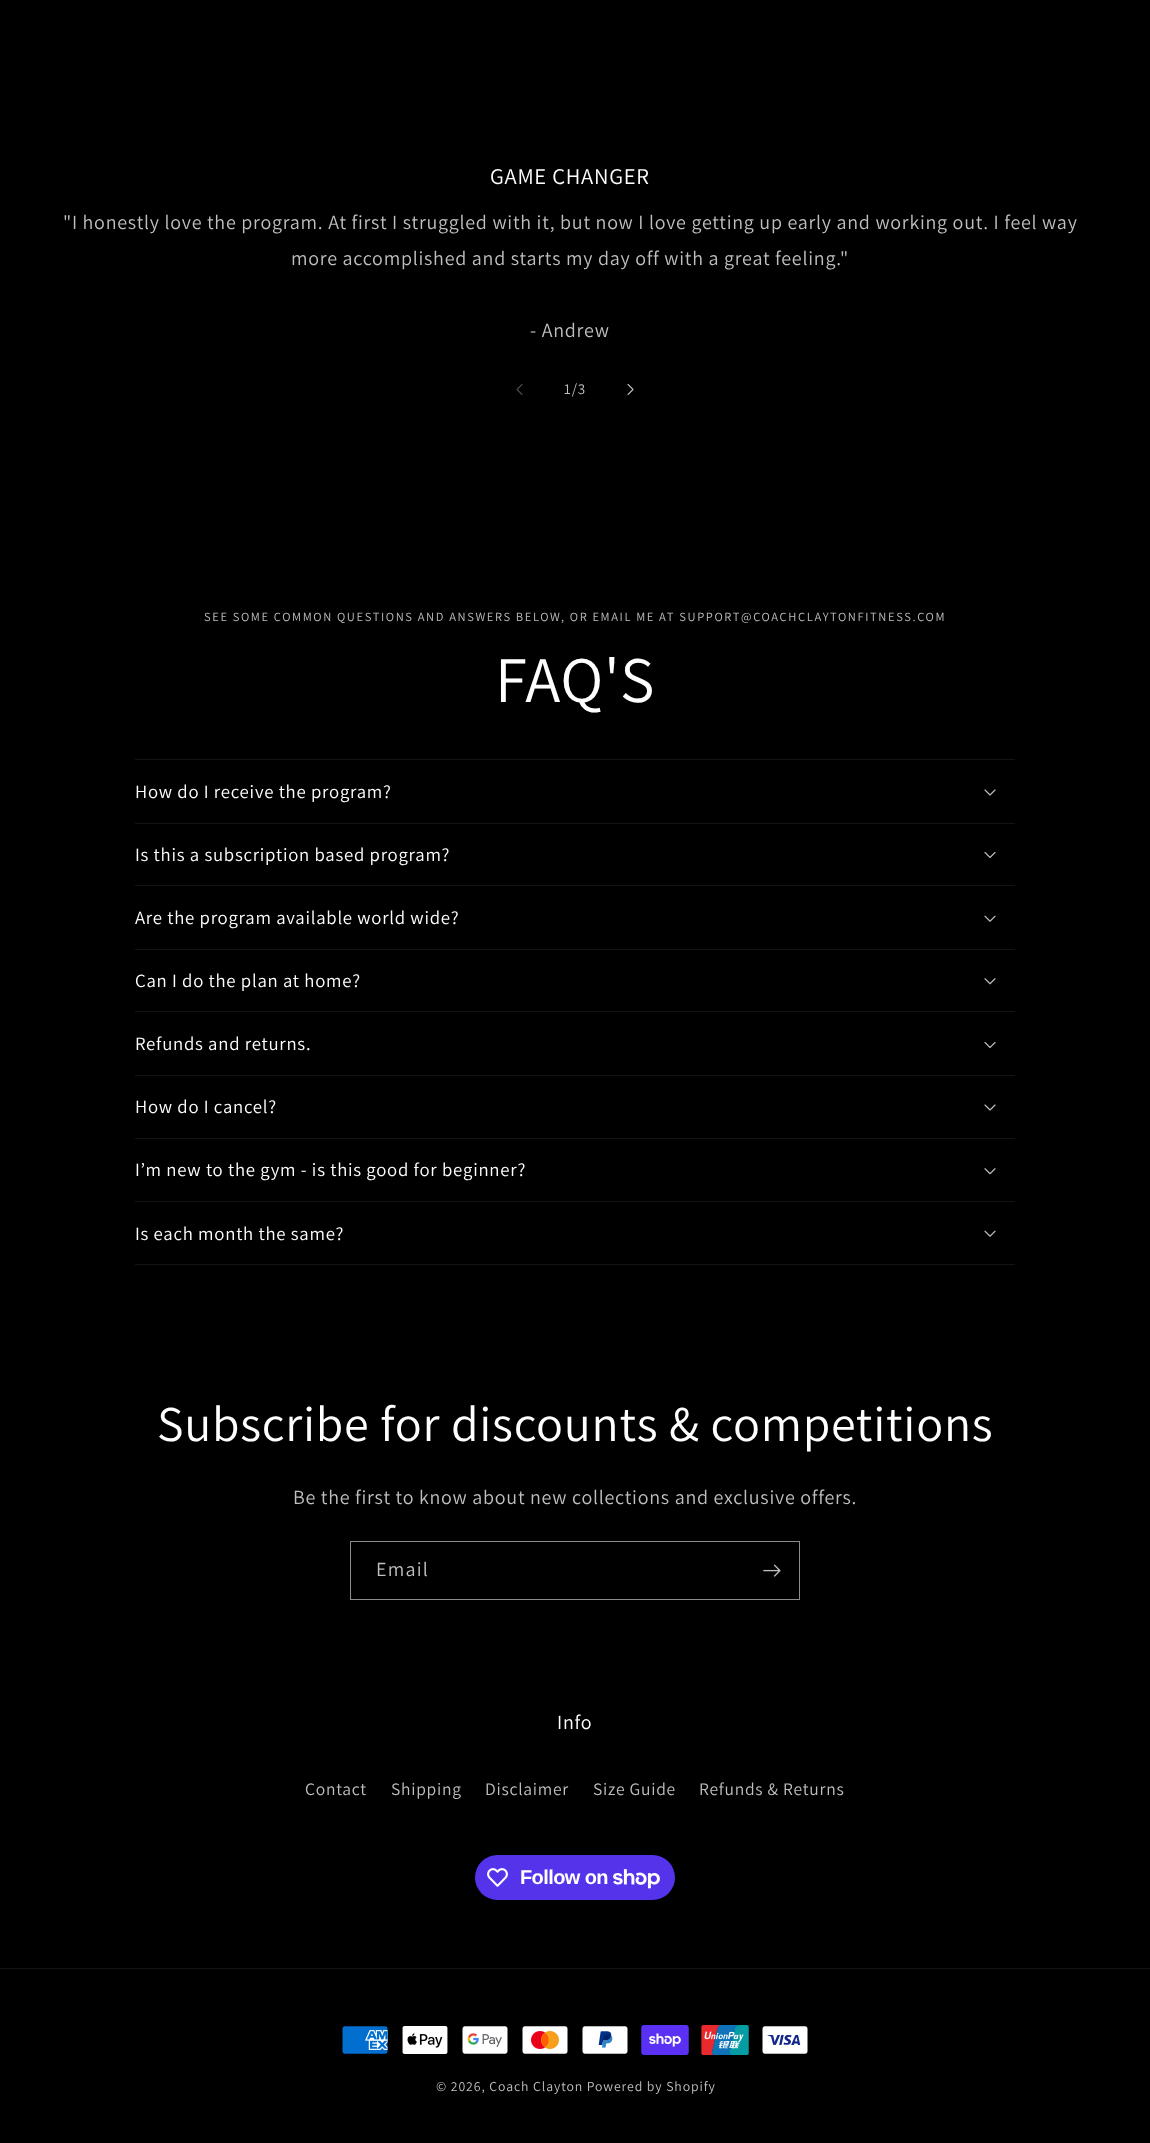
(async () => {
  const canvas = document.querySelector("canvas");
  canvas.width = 1150;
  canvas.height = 2143;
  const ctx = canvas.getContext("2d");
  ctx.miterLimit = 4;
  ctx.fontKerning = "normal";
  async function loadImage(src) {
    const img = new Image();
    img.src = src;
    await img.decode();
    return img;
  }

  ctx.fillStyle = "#000000";
  ctx.fillRect(0, 0, 1150, 2143);
  ctx.drawImage(await loadImage("img/1.png"), 516, 384, 7, 11);
  ctx.drawImage(await loadImage("img/2.png"), 627, 383, 7, 12);
  ctx.fillStyle = "#141414";
  ctx.fillRect(135, 759, 880, 1);
  ctx.fillRect(135, 823, 880, 1);
  ctx.drawImage(await loadImage("img/3.png"), 984, 789, 12, 7);
  ctx.fillRect(135, 885, 880, 1);
  ctx.drawImage(await loadImage("img/4.png"), 984, 852, 12, 6);
  ctx.fillRect(135, 949, 880, 1);
  ctx.drawImage(await loadImage("img/5.png"), 984, 915, 12, 7);
  ctx.fillRect(135, 1011, 880, 1);
  ctx.drawImage(await loadImage("img/6.png"), 984, 978, 12, 7);
  ctx.fillRect(135, 1075, 880, 1);
  ctx.drawImage(await loadImage("img/4.png"), 984, 1042, 12, 6);
  ctx.fillRect(135, 1138, 880, 1);
  ctx.drawImage(await loadImage("img/3.png"), 984, 1104, 12, 7);
  ctx.fillRect(135, 1201, 880, 1);
  ctx.drawImage(await loadImage("img/6.png"), 984, 1168, 12, 7);
  ctx.fillRect(135, 1264, 880, 1);
  ctx.drawImage(await loadImage("img/5.png"), 984, 1230, 12, 7);
  ctx.strokeStyle = "#8c8c8c";
  ctx.strokeRect(350.5, 1541.5, 449, 58);
  ctx.drawImage(await loadImage("img/7.png"), 763, 1564, 18, 13);
  ctx.fillStyle = "#5433eb";
  ctx.beginPath();
  ctx.roundRect(475, 1855, 200, 45, 22.5);
  ctx.fill();
  ctx.drawImage(await loadImage("img/8.png"), 487, 1868, 21, 19);
  ctx.drawImage(await loadImage("img/9.png"), 613, 1869, 47, 20);
  ctx.fillStyle = "#141414";
  ctx.fillRect(0, 1968, 1150, 1);
  ctx.drawImage(await loadImage("img/10.png"), 342, 2026, 46, 28);
  ctx.drawImage(await loadImage("img/11.png"), 402, 2026, 46, 28);
  ctx.drawImage(await loadImage("img/12.png"), 462, 2026, 46, 28);
  ctx.drawImage(await loadImage("img/13.png"), 522, 2026, 46, 28);
  ctx.drawImage(await loadImage("img/14.png"), 582, 2026, 46, 28);
  ctx.drawImage(await loadImage("img/15.png"), 641, 2025, 48, 30);
  ctx.drawImage(await loadImage("img/16.png"), 701, 2025, 48, 30);
  ctx.drawImage(await loadImage("img/17.png"), 762, 2026, 46, 28);
  ctx.letterSpacing = "0.75px";
  ctx.font = "22.5px Assistant";
  ctx.fillStyle = "#ffffff";
  ctx.fillText("GAME CHANGER", 490, 184);
  ctx.font = "20px Assistant";
  ctx.fillStyle = "#bfbfbf";
  for (const [text, x, y] of [
    ["\"I honestly love the program. At first I struggled with it, but now I love getting up early and working out. I feel way", 63, 229],
    ["more accomplished and starts my day off with a great feeling.\"", 291, 265],
    ["- Andrew", 530, 337],
  ]) {
    ctx.fillText(text, x, y);
  }
  ctx.letterSpacing = "0.9px";
  ctx.font = "15px Assistant";
  ctx.fillText("1/3", 564, 394);
  ctx.letterSpacing = "1.62px";
  ctx.font = "12.5px Assistant";
  ctx.fillText("SEE SOME COMMON QUESTIONS AND ANSWERS BELOW, OR EMAIL ME AT SUPPORT@COACHCLAYTONFITNESS.COM", 204, 621);
  ctx.letterSpacing = "0.75px";
  ctx.font = "65px Assistant";
  ctx.fillStyle = "#ffffff";
  ctx.fillText("FAQ'S", 495, 702);
  ctx.font = "18.75px Assistant";
  for (const [text, x, y] of [
    ["How do I receive the program?", 135, 798],
    ["Is this a subscription based program?", 135, 861],
    ["Are the program available world wide?", 135, 924],
    ["Can I do the plan at home?", 135, 987],
    ["Refunds and returns.", 135, 1050],
    ["How do I cancel?", 135, 1113],
    ["I’m new to the gym - is this good for beginner?", 135, 1176],
    ["Is each month the same?", 135, 1240],
  ]) {
    ctx.fillText(text, x, y);
  }
  ctx.font = "50px Assistant";
  ctx.fillText("Subscribe for discounts & competitions", 157, 1441);
  ctx.font = "20px Assistant";
  ctx.fillStyle = "#bfbfbf";
  ctx.fillText("Be the first to know about new collections and exclusive offers.", 293, 1504);
  ctx.letterSpacing = "1.25px";
  ctx.fillText("Email", 376, 1576);
  ctx.letterSpacing = "0.75px";
  ctx.fillStyle = "#ffffff";
  ctx.fillText("Info", 557, 1729);
  ctx.font = "17.5px Assistant";
  ctx.fillStyle = "#bfbfbf";
  for (const [text, x, y] of [
    ["Contact", 305, 1795],
    ["Shipping", 391, 1795],
    ["Disclaimer", 485, 1795],
    ["Size Guide", 593, 1795],
    ["Refunds & Returns", 699, 1795],
  ]) {
    ctx.fillText(text, x, y);
  }
  ctx.letterSpacing = "-0.6px";
  ctx.font = "bold 20px Liberation Sans";
  ctx.fillStyle = "#ffffff";
  ctx.fillText("Follow on", 520, 1884);
  ctx.letterSpacing = "0.9px";
  ctx.font = "13.75px Assistant";
  ctx.fillStyle = "#bfbfbf";
  ctx.fillText("© 2026, Coach Clayton Powered by Shopify", 436, 2091);
})();
